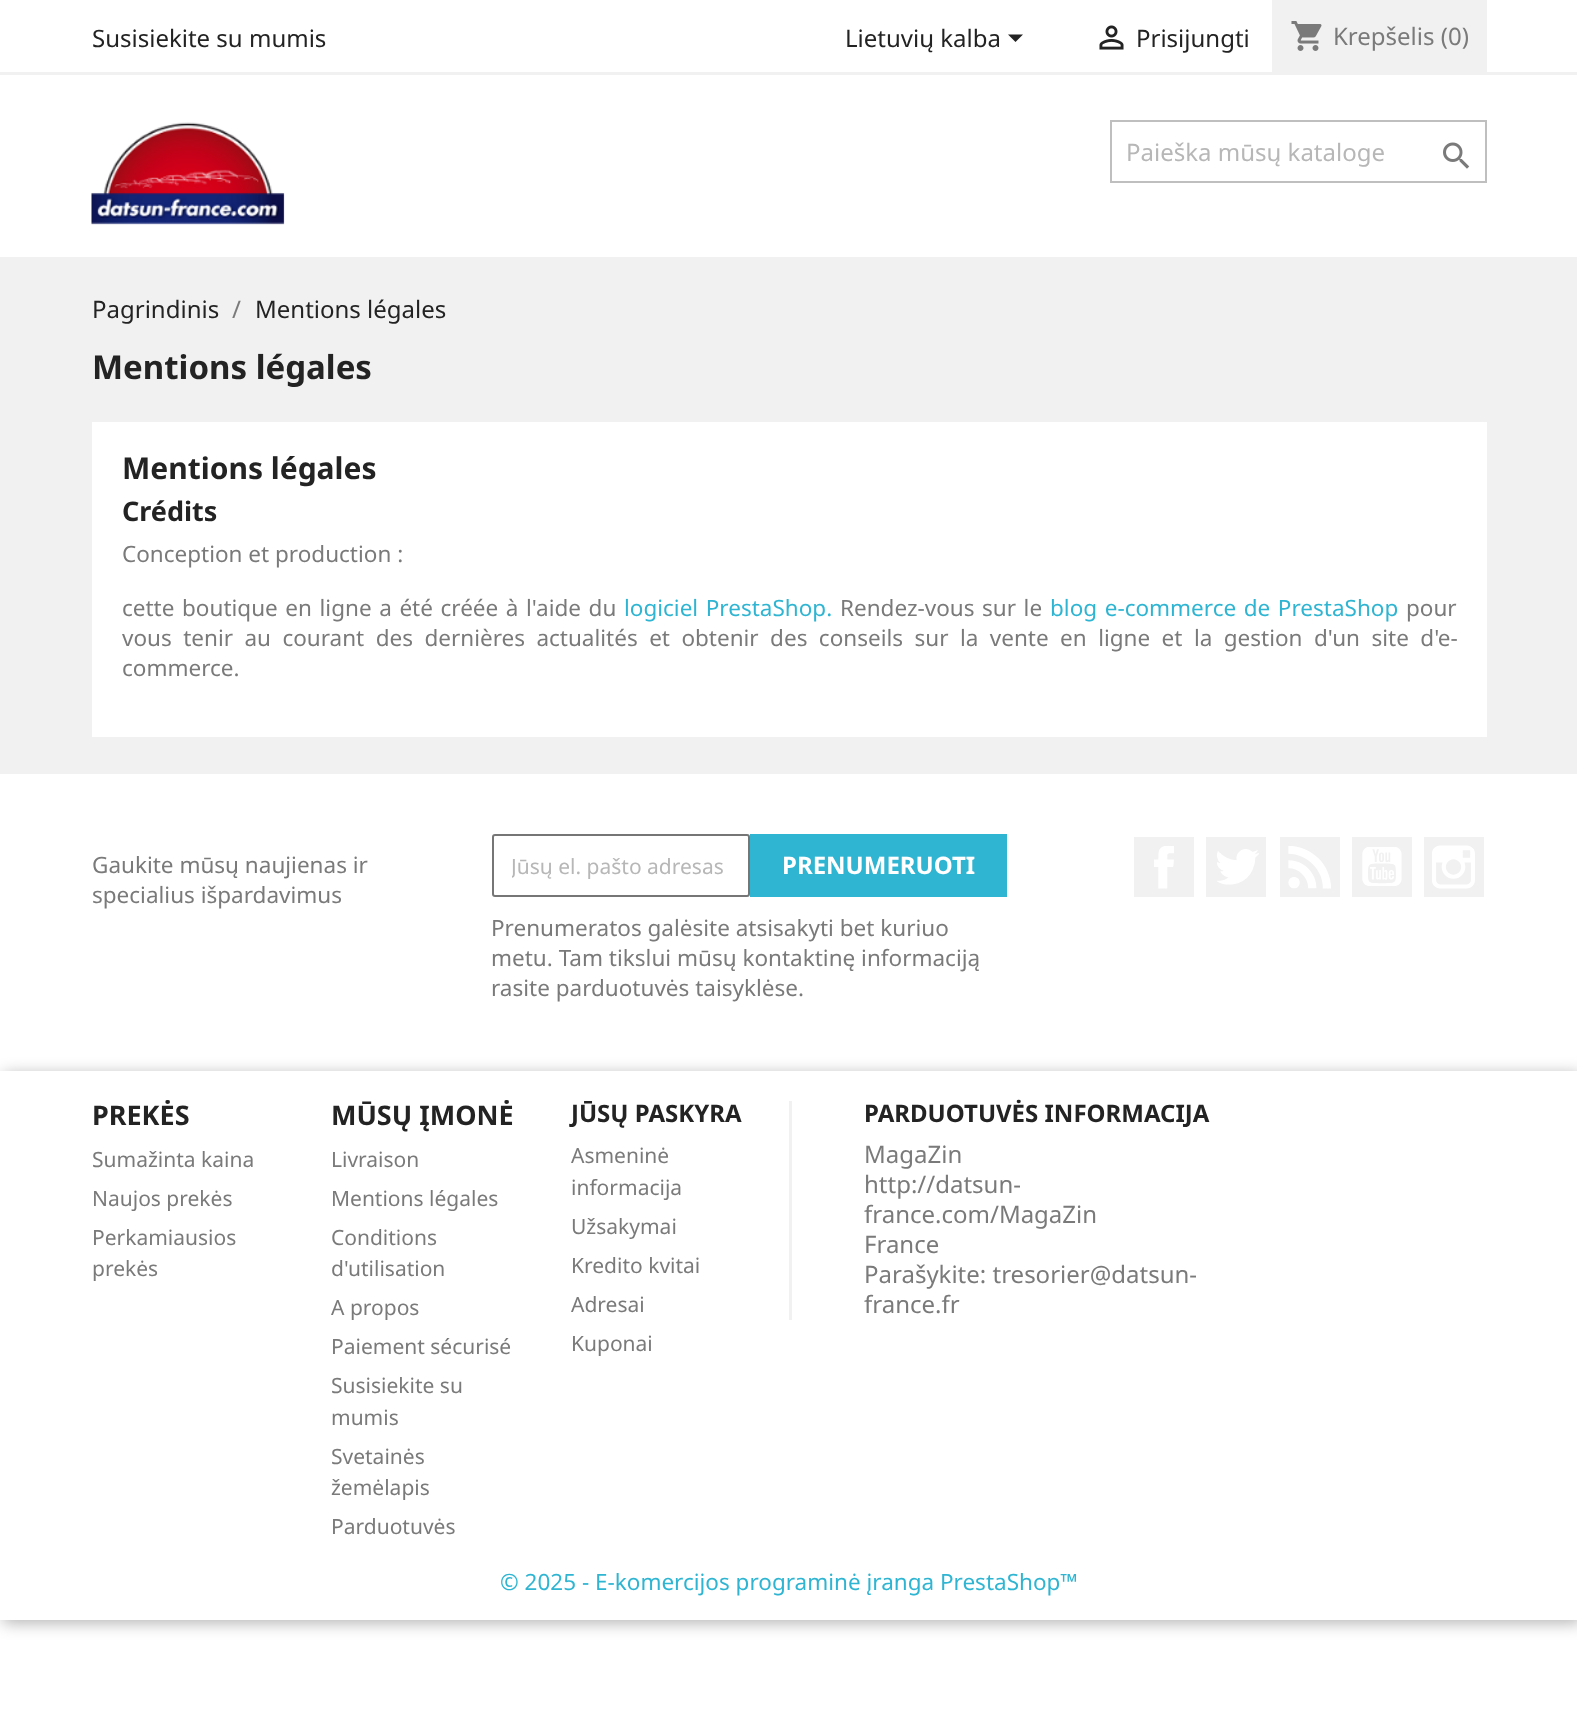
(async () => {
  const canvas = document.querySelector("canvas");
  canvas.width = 1577;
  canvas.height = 1728;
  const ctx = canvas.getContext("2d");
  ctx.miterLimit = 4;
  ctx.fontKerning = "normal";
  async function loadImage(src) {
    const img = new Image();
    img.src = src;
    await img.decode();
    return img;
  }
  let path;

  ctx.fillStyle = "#ffffff";
  ctx.fillRect(0, 0, 1577, 1728);
  ctx.fillStyle = "#f1f1f1";
  ctx.fillRect(0, 72, 1577, 3);
  ctx.fillStyle = "#232323";
  path = new Path2D("M1008 34.5H1023L1015.5 42Z");
  ctx.fill(path);
  ctx.drawImage(await loadImage("img/1.png"), 1099, 25, 25, 25);
  ctx.fillStyle = "#f1f1f1";
  ctx.fillRect(1272, 0, 215, 72);
  ctx.drawImage(await loadImage("img/2.png"), 1291, 21, 31, 30);
  ctx.drawImage(await loadImage("img/3.png"), 91, 122, 194, 103);
  ctx.strokeStyle = "#bfbfbf";
  ctx.lineWidth = 2;
  ctx.strokeRect(1111, 121, 375, 61);
  ctx.drawImage(await loadImage("img/4.png"), 1443, 142, 27, 27);
  ctx.fillRect(0, 257, 1577, 517);
  ctx.fillStyle = "#ffffff";
  ctx.fillRect(92, 422, 1395, 315);
  ctx.beginPath();
  ctx.roundRect(493, 835, 256, 61, 2);
  ctx.strokeStyle = "#767676";
  ctx.stroke();
  ctx.fillStyle = "#2fb5d2";
  ctx.fillRect(750, 834, 257, 63);
  ctx.fillStyle = "#f1f1f1";
  ctx.fillRect(1134, 837, 60, 60);
  ctx.drawImage(await loadImage("img/5.png"), 1154, 846, 20, 43);
  ctx.fillRect(1206, 837, 60, 60);
  ctx.drawImage(await loadImage("img/6.png"), 1217, 849, 42, 36);
  ctx.fillRect(1280, 837, 60, 60);
  ctx.drawImage(await loadImage("img/7.png"), 1288, 846, 43, 43);
  ctx.fillRect(1352, 837, 60, 60);
  ctx.drawImage(await loadImage("img/8.png"), 1362, 847, 40, 39);
  ctx.fillRect(1424, 837, 60, 60);
  ctx.drawImage(await loadImage("img/9.png"), 1432, 845, 43, 44);
  ctx.save();
  path = new Path2D("M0 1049H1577V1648H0ZM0 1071H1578V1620H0Z");
  ctx.clip(path, "evenodd");
  ctx.fillStyle = "rgba(0, 0, 0, 0.3)";
  ctx.filter = "blur(8px)";
  ctx.beginPath();
  ctx.rect(3, 1074, 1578, 549);
  ctx.fill();
  ctx.filter = "none";
  ctx.restore();
  ctx.fillRect(789, 1101, 3, 219);
  ctx.font = "24px Noto Sans";
  ctx.fillStyle = "#232323";
  for (const [text, x, y] of [
    ["Susisiekite su mumis", 92, 47],
    ["Lietuvių kalba", 845, 47],
    ["Prisijungti", 1136, 47],
  ]) {
    ctx.fillText(text, x, y);
  }
  ctx.fillStyle = "#7a7a7a";
  ctx.fillText("Krepšelis (0)", 1333, 45);
  ctx.fillStyle = "#b7b7b7";
  ctx.fillText("Paieška mūsų kataloge", 1126, 161);
  ctx.fillStyle = "#232323";
  ctx.fillText("Pagrindinis", 92, 318);
  ctx.fillStyle = "#7a7a7a";
  ctx.fillText("/", 232, 318);
  ctx.fillStyle = "#232323";
  ctx.fillText("Mentions légales", 255, 318);
  ctx.font = "bold 33px Noto Sans";
  ctx.fillText("Mentions légales", 92, 379);
  ctx.font = "bold 30px Noto Sans";
  ctx.fillText("Mentions légales", 122, 479);
  ctx.font = "bold 27px Noto Sans";
  ctx.fillText("Crédits", 122, 521);
  ctx.font = "22.5px Noto Sans";
  ctx.fillStyle = "#7a7a7a";
  ctx.fillText("Conception et production :", 122, 562);
  ctx.wordSpacing = "1.75px";
  ctx.fillText("cette boutique en ligne a été créée à l'aide du", 122, 616);
  ctx.fillStyle = "#2fb5d2";
  ctx.fillText("logiciel PrestaShop.", 624, 616);
  ctx.fillStyle = "#7a7a7a";
  ctx.fillText("Rendez-vous sur le", 840, 616);
  ctx.fillStyle = "#2fb5d2";
  ctx.fillText("blog e-commerce de PrestaShop", 1050, 616);
  ctx.wordSpacing = "0px";
  ctx.fillStyle = "#7a7a7a";
  ctx.fillText("pour", 1406, 616);
  ctx.wordSpacing = "5.6px";
  ctx.fillText("vous tenir au courant des dernières actualités et obtenir des conseils sur la vente en ligne et la gestion d'un site d'e-", 122, 646);
  ctx.wordSpacing = "0px";
  for (const [text, x, y] of [
    ["commerce.", 122, 676],
    ["Gaukite mūsų naujienas ir", 92, 873],
    ["specialius išpardavimus", 92, 903],
  ]) {
    ctx.fillText(text, x, y);
  }
  ctx.save();
  ctx.beginPath();
  ctx.rect(512, 851, 219, 28);
  ctx.clip();
  ctx.font = "21px Noto Sans";
  ctx.fillStyle = "#b7b7b7";
  ctx.fillText("Jūsų el. pašto adresas", 511, 874);
  ctx.restore();
  ctx.font = "bold 24px Noto Sans";
  ctx.fillStyle = "#ffffff";
  ctx.fillText("PRENUMERUOTI", 782, 874);
  ctx.font = "22.5px Noto Sans";
  ctx.fillStyle = "#7a7a7a";
  for (const [text, x, y] of [
    ["Prenumeratos galėsite atsisakyti bet kuriuo", 491, 936],
    ["metu. Tam tikslui mūsų kontaktinę informaciją", 491, 966],
    ["rasite parduotuvės taisyklėse.", 491, 996],
  ]) {
    ctx.fillText(text, x, y);
  }
  ctx.font = "bold 27px Noto Sans";
  ctx.fillStyle = "#232323";
  ctx.fillText("PREKĖS", 92, 1125);
  ctx.font = "21px Noto Sans";
  ctx.fillStyle = "#7a7a7a";
  for (const [text, x, y] of [
    ["Sumažinta kaina", 92, 1167],
    ["Naujos prekės", 92, 1206],
    ["Perkamiausios", 92, 1245],
    ["prekės", 92, 1276],
  ]) {
    ctx.fillText(text, x, y);
  }
  ctx.font = "bold 27px Noto Sans";
  ctx.fillStyle = "#232323";
  ctx.fillText("MŪSŲ ĮMONĖ", 331, 1125);
  ctx.font = "21px Noto Sans";
  ctx.fillStyle = "#7a7a7a";
  for (const [text, x, y] of [
    ["Livraison", 331, 1167],
    ["Mentions légales", 331, 1206],
    ["Conditions", 331, 1245],
    ["d'utilisation", 331, 1276],
    ["A propos", 331, 1315],
    ["Paiement sécurisé", 331, 1354],
    ["Susisiekite su", 331, 1393],
    ["mumis", 331, 1425],
    ["Svetainės", 331, 1464],
    ["žemėlapis", 331, 1495],
    ["Parduotuvės", 331, 1534],
  ]) {
    ctx.fillText(text, x, y);
  }
  ctx.font = "bold 24px Noto Sans";
  ctx.fillStyle = "#232323";
  ctx.fillText("JŪSŲ PASKYRA", 571, 1122);
  ctx.font = "21px Noto Sans";
  ctx.fillStyle = "#7a7a7a";
  for (const [text, x, y] of [
    ["Asmeninė", 571, 1163],
    ["informacija", 571, 1195],
    ["Užsakymai", 571, 1234],
    ["Kredito kvitai", 571, 1273],
    ["Adresai", 571, 1312],
    ["Kuponai", 571, 1351],
  ]) {
    ctx.fillText(text, x, y);
  }
  ctx.font = "bold 24px Noto Sans";
  ctx.fillStyle = "#232323";
  ctx.fillText("PARDUOTUVĖS INFORMACIJA", 864, 1122);
  ctx.font = "24px Noto Sans";
  ctx.fillStyle = "#7a7a7a";
  for (const [text, x, y] of [
    ["MagaZin", 864, 1163],
    ["http://datsun-", 864, 1193],
    ["france.com/MagaZin", 864, 1223],
    ["France", 864, 1253],
    ["Parašykite: tresorier@datsun-", 864, 1283],
    ["france.fr", 864, 1313],
  ]) {
    ctx.fillText(text, x, y);
  }
  ctx.font = "22.5px Noto Sans";
  ctx.fillStyle = "#2fb5d2";
  ctx.fillText("© 2025 - E-komercijos programinė įranga PrestaShop™", 500, 1590);
})();
